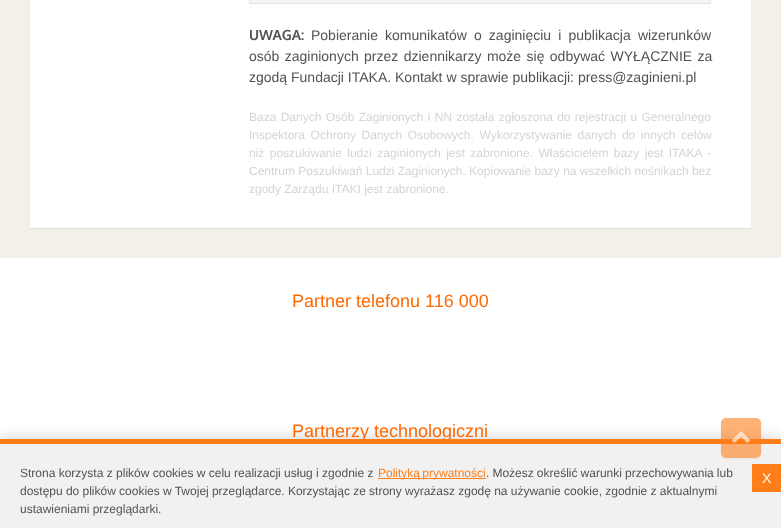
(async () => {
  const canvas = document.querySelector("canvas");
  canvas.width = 781;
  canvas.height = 528;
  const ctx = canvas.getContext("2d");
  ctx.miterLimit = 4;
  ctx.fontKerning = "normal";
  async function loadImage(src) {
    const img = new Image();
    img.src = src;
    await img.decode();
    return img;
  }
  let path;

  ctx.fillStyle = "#f3efe9";
  ctx.fillRect(0, 0, 781, 528);
  ctx.fillStyle = "rgba(0, 0, 0, 0.08)";
  ctx.filter = "blur(0.5px)";
  ctx.beginPath();
  ctx.rect(30, -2, 721, 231);
  ctx.fill();
  ctx.filter = "none";
  ctx.fillStyle = "#ffffff";
  ctx.fillRect(30, 0, 721, 228);
  ctx.fillStyle = "#f4f4f4";
  ctx.beginPath();
  ctx.rect(249.5, -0.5, 461, 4);
  ctx.fill();
  ctx.strokeStyle = "#e8e4de";
  ctx.stroke();
  ctx.fillStyle = "#ffffff";
  ctx.fillRect(0, 258, 781, 181);
  ctx.fillStyle = "rgba(0, 0, 0, 0.2)";
  ctx.filter = "blur(7.5px)";
  ctx.beginPath();
  ctx.rect(0, 439, 781, 89);
  ctx.fill();
  ctx.filter = "none";
  for (const [x, y, w, h, color] of [
    [0, 444, 781, 84, "#f1f1f1"],
    [378, 478, 108, 1, "#ff7e19"],
    [752, 464, 29, 28, "#ff7e19"],
  ]) {
    ctx.fillStyle = color;
    ctx.fillRect(x, y, w, h);
  }
  ctx.font = "bold 14px Oxygen";
  ctx.fillStyle = "#525252";
  ctx.fillText("UWAGA:", 249, 40);
  ctx.wordSpacing = "3.25px";
  ctx.font = "14px Liberation Sans";
  ctx.fillText("Pobieranie komunikatów o zaginięciu i publikacja wizerunków", 311, 40);
  ctx.wordSpacing = "1.5px";
  ctx.fillText("osób zaginionych przez dziennikarzy może się odbywać WYŁĄCZNIE za", 249, 61);
  ctx.wordSpacing = "0px";
  ctx.fillText("zgodą Fundacji ITAKA. Kontakt w sprawie publikacji: press@zaginieni.pl", 249, 82);
  ctx.wordSpacing = "1px";
  ctx.font = "12px Liberation Sans";
  ctx.fillStyle = "#d4d4d4";
  ctx.fillText("Baza Danych Osób Zaginionych i NN została zgłoszona do rejestracji u Generalnego", 249, 121);
  ctx.wordSpacing = "2.25px";
  ctx.fillText("Inspektora Ochrony Danych Osobowych. Wykorzystywanie danych do innych celów", 249, 139);
  ctx.wordSpacing = "2.1px";
  ctx.fillText("niż poszukiwanie ludzi zaginionych jest zabronione. Właścicielem bazy jest ITAKA -", 249, 157);
  ctx.wordSpacing = "0px";
  ctx.fillText("Centrum Poszukiwań Ludzi Zaginionych. Kopiowanie bazy na wszelkich nośnikach bez", 249, 175);
  ctx.fillText("zgody Zarządu ITAKI jest zabronione.", 249, 193);
  ctx.font = "18px Liberation Sans";
  ctx.fillStyle = "#fe6902";
  ctx.fillText("Partner telefonu 116 000", 292, 307);
  ctx.fillText("Partnerzy technologiczni", 292, 437);
  ctx.fillStyle = "#ff7e19";
  ctx.fillRect(0, 439, 781, 5);
  ctx.save();
  path = new Path2D("M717 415H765V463H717ZM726 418H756C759 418 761 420 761 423V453C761 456 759 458 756 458H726C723 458 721 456 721 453V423C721 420 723 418 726 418Z");
  ctx.clip(path, "evenodd");
  ctx.fillStyle = "rgba(0, 0, 0, 0.06)";
  ctx.filter = "blur(1px)";
  ctx.beginPath();
  ctx.roundRect(721, 419, 40, 40, 5);
  ctx.fill();
  ctx.filter = "none";
  ctx.restore();
  ctx.fillStyle = "rgba(255, 126, 25, 0.6)";
  ctx.beginPath();
  ctx.roundRect(721, 418, 40, 40, 5);
  ctx.fill();
  ctx.drawImage(await loadImage("img/1.png"), 732, 431, 18, 12);
  ctx.font = "12px Liberation Sans";
  ctx.fillStyle = "#525252";
  ctx.fillText("Strona korzysta z plików cookies w celu realizacji usług i zgodnie z", 20, 477);
  ctx.wordSpacing = "-1px";
  ctx.fillStyle = "#ff7e19";
  ctx.fillText("Polityką prywatności", 378, 477);
  ctx.wordSpacing = "-0.25px";
  ctx.fillStyle = "#525252";
  ctx.fillText(". Możesz określić warunki przechowywania lub", 486, 477);
  ctx.wordSpacing = "0px";
  ctx.font = "14px Liberation Sans";
  ctx.fillStyle = "#ffffff";
  ctx.fillText("X", 762, 483);
  ctx.wordSpacing = "-0.1px";
  ctx.font = "12px Liberation Sans";
  ctx.fillStyle = "#525252";
  ctx.fillText("dostępu do plików cookies w Twojej przeglądarce. Korzystając ze strony wyrażasz zgodę na używanie cookie, zgodnie z aktualnymi", 20, 495);
  ctx.wordSpacing = "0px";
  ctx.fillText("ustawieniami przeglądarki.", 20, 513);
})();
